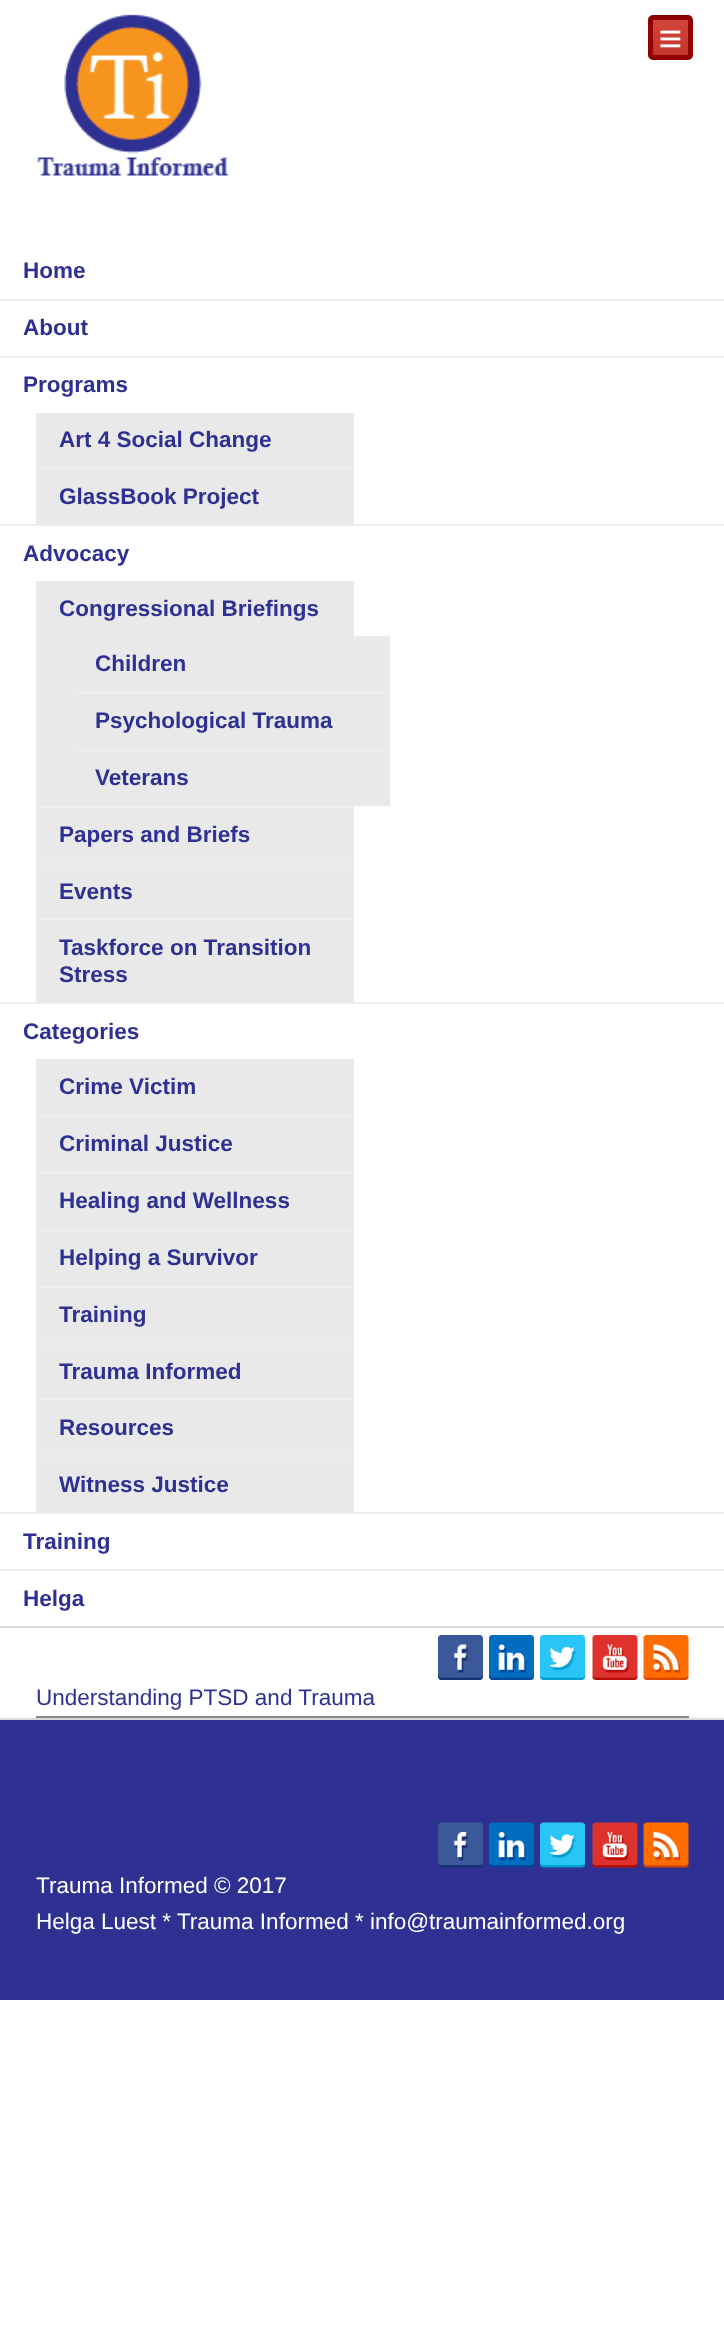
(async () => {
  const canvas = document.querySelector("canvas");
  canvas.width = 724;
  canvas.height = 2328;
  const ctx = canvas.getContext("2d");
  ctx.miterLimit = 4;
  ctx.fontKerning = "normal";
  async function loadImage(src) {
    const img = new Image();
    img.src = src;
    await img.decode();
    return img;
  }
  let gradient;

  ctx.fillStyle = "#ffffff";
  ctx.fillRect(0, 0, 724, 2328);
  ctx.fillStyle = "#dadada";
  ctx.fillRect(0, 1626, 724, 2);
  ctx.drawImage(await loadImage("img/1.png"), 37, 14, 192, 162);
  gradient = ctx.createLinearGradient(671, 19, 671, 56);
  gradient.addColorStop(0, "#d4463a");
  gradient.addColorStop(1, "#c33529");
  ctx.fillStyle = gradient;
  ctx.fillRect(653, 20, 35, 35);
  ctx.beginPath();
  ctx.roundRect(650.5, 17.5, 40, 40, 2.5);
  ctx.strokeStyle = "#900200";
  ctx.lineWidth = 5;
  ctx.stroke();
  ctx.drawImage(await loadImage("img/2.png"), 660, 30, 21, 18);
  for (const [x, y, w, h, color] of [
    [0, 299, 724, 2, "#eeeeee"],
    [0, 356, 724, 2, "#eeeeee"],
    [0, 524, 724, 2, "#eeeeee"],
    [36, 413, 318, 111, "#e9e9e9"],
    [36, 467, 318, 2, "#eeeeee"],
    [0, 1002, 724, 2, "#eeeeee"],
    [36, 581, 318, 421, "#e9e9e9"],
    [36, 806, 318, 2, "#eeeeee"],
    [354, 636, 36, 170, "#e9e9e9"],
    [74, 692, 316, 2, "#eeeeee"],
    [74, 749, 316, 2, "#eeeeee"],
    [36, 863, 318, 2, "#eeeeee"],
    [36, 918, 318, 2, "#eeeeee"],
    [0, 1512, 724, 2, "#eeeeee"],
    [36, 1059, 318, 453, "#e9e9e9"],
    [36, 1115, 318, 2, "#eeeeee"],
    [36, 1172, 318, 2, "#eeeeee"],
    [36, 1229, 318, 2, "#eeeeee"],
    [36, 1286, 318, 2, "#eeeeee"],
    [36, 1343, 318, 2, "#eeeeee"],
    [36, 1398, 318, 2, "#eeeeee"],
    [36, 1455, 318, 2, "#eeeeee"],
    [0, 1569, 724, 2, "#eeeeee"],
  ]) {
    ctx.fillStyle = color;
    ctx.fillRect(x, y, w, h);
  }
  ctx.drawImage(await loadImage("img/3.png"), 438, 1635, 45, 45);
  ctx.drawImage(await loadImage("img/4.png"), 489, 1635, 45, 45);
  ctx.drawImage(await loadImage("img/5.png"), 540, 1635, 45, 45);
  ctx.drawImage(await loadImage("img/6.png"), 592, 1635, 46, 45);
  ctx.drawImage(await loadImage("img/7.png"), 643, 1635, 46, 45);
  for (const [x, y, w, h, color] of [
    [36, 1716, 653, 2, "#848a92"],
    [0, 1720, 724, 280, "#2e3092"],
    [0, 1718, 724, 2, "#dadada"],
  ]) {
    ctx.fillStyle = color;
    ctx.fillRect(x, y, w, h);
  }
  ctx.drawImage(await loadImage("img/8.png"), 438, 1822, 45, 46);
  ctx.drawImage(await loadImage("img/9.png"), 489, 1822, 45, 46);
  ctx.drawImage(await loadImage("img/10.png"), 540, 1822, 45, 46);
  ctx.drawImage(await loadImage("img/11.png"), 592, 1822, 46, 46);
  ctx.drawImage(await loadImage("img/12.png"), 643, 1822, 46, 46);
  ctx.font = "bold 22.5px Liberation Sans";
  ctx.fillStyle = "#2e3092";
  for (const [text, x, y] of [
    ["Home", 23, 278],
    ["About", 23, 335],
    ["Programs", 23, 392],
    ["Art 4 Social Change", 59, 447],
    ["GlassBook Project", 59, 504],
    ["Advocacy", 23, 561],
    ["Congressional Briefings", 59, 616],
    ["Children", 95, 671],
    ["Psychological Trauma", 95, 728],
    ["Veterans", 95, 785],
    ["Papers and Briefs", 59, 842],
    ["Events", 59, 899],
    ["Taskforce on Transition", 59, 955],
    ["Stress", 59, 982],
    ["Categories", 23, 1039],
    ["Crime Victim", 59, 1094],
    ["Criminal Justice", 59, 1151],
    ["Healing and Wellness", 59, 1208],
    ["Helping a Survivor", 59, 1265],
    ["Training", 59, 1322],
    ["Trauma Informed", 59, 1379],
    ["Resources", 59, 1435],
    ["Witness Justice", 59, 1492],
    ["Training", 23, 1549],
    ["Helga", 23, 1606],
  ]) {
    ctx.fillText(text, x, y);
  }
  ctx.font = "22.5px Liberation Sans";
  ctx.fillText("Understanding PTSD and Trauma", 36, 1705);
  ctx.fillStyle = "#ffffff";
  ctx.fillText("Trauma Informed © 2017", 36, 1893);
  ctx.fillText("Helga Luest * Trauma Informed * info@traumainformed.org", 36, 1929);
})();
